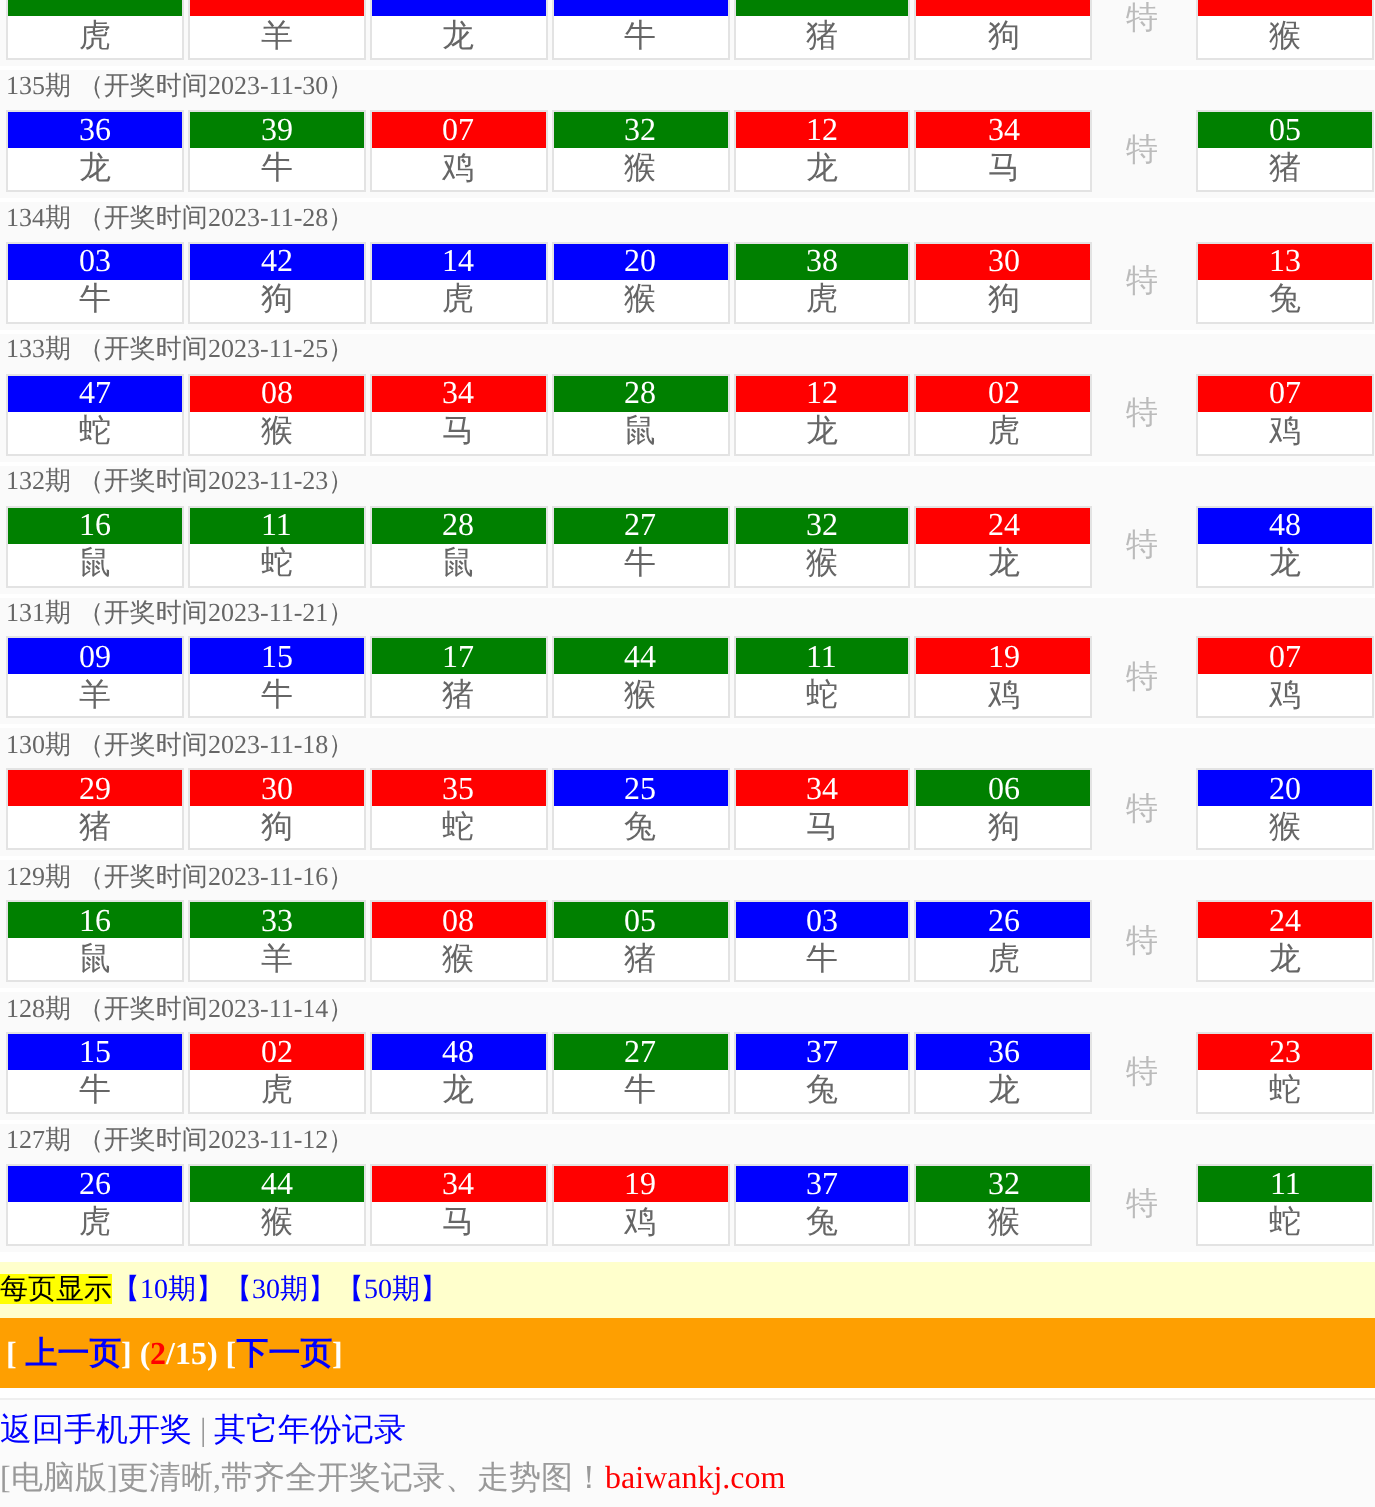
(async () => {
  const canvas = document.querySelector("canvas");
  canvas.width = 1375;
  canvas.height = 1507;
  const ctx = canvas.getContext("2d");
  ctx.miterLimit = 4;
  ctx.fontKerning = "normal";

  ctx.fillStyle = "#ffffff";
  ctx.fillRect(0, 0, 1375, 1507);
  ctx.fillStyle = "#fafafa";
  ctx.fillRect(0, 0, 1375, 66);
  ctx.strokeStyle = "#e3e3e3";
  ctx.lineWidth = 2;
  ctx.strokeRect(7, -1, 176, 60);
  ctx.fillStyle = "#008000";
  ctx.fillRect(8, 0, 174, 16);
  ctx.fillStyle = "#ffffff";
  ctx.fillRect(8, 16, 174, 42);
  ctx.strokeRect(189, -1, 176, 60);
  ctx.fillStyle = "#ff0000";
  ctx.fillRect(190, 0, 174, 16);
  ctx.fillStyle = "#ffffff";
  ctx.fillRect(190, 16, 174, 42);
  ctx.strokeRect(371, -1, 176, 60);
  ctx.fillStyle = "#0000ff";
  ctx.fillRect(372, 0, 174, 16);
  ctx.fillStyle = "#ffffff";
  ctx.fillRect(372, 16, 174, 42);
  ctx.strokeRect(553, -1, 176, 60);
  ctx.fillStyle = "#0000ff";
  ctx.fillRect(554, 0, 174, 16);
  ctx.fillStyle = "#ffffff";
  ctx.fillRect(554, 16, 174, 42);
  ctx.strokeRect(735, -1, 174, 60);
  ctx.fillStyle = "#008000";
  ctx.fillRect(736, 0, 172, 16);
  ctx.fillStyle = "#ffffff";
  ctx.fillRect(736, 16, 172, 42);
  ctx.strokeRect(915, -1, 176, 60);
  ctx.fillStyle = "#ff0000";
  ctx.fillRect(916, 0, 174, 16);
  ctx.fillStyle = "#ffffff";
  ctx.fillRect(916, 16, 174, 42);
  ctx.strokeRect(1197, -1, 176, 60);
  for (const [x, y, w, h, color] of [
    [1198, 0, 174, 16, "#ff0000"],
    [1198, 16, 174, 42, "#ffffff"],
    [0, 70, 1375, 128, "#fafafa"],
  ]) {
    ctx.fillStyle = color;
    ctx.fillRect(x, y, w, h);
  }
  ctx.strokeRect(7, 111, 176, 80);
  ctx.fillStyle = "#0000ff";
  ctx.fillRect(8, 112, 174, 36);
  ctx.fillStyle = "#ffffff";
  ctx.fillRect(8, 148, 174, 42);
  ctx.strokeRect(189, 111, 176, 80);
  ctx.fillStyle = "#008000";
  ctx.fillRect(190, 112, 174, 36);
  ctx.fillStyle = "#ffffff";
  ctx.fillRect(190, 148, 174, 42);
  ctx.strokeRect(371, 111, 176, 80);
  ctx.fillStyle = "#ff0000";
  ctx.fillRect(372, 112, 174, 36);
  ctx.fillStyle = "#ffffff";
  ctx.fillRect(372, 148, 174, 42);
  ctx.strokeRect(553, 111, 176, 80);
  ctx.fillStyle = "#008000";
  ctx.fillRect(554, 112, 174, 36);
  ctx.fillStyle = "#ffffff";
  ctx.fillRect(554, 148, 174, 42);
  ctx.strokeRect(735, 111, 174, 80);
  ctx.fillStyle = "#ff0000";
  ctx.fillRect(736, 112, 172, 36);
  ctx.fillStyle = "#ffffff";
  ctx.fillRect(736, 148, 172, 42);
  ctx.strokeRect(915, 111, 176, 80);
  ctx.fillStyle = "#ff0000";
  ctx.fillRect(916, 112, 174, 36);
  ctx.fillStyle = "#ffffff";
  ctx.fillRect(916, 148, 174, 42);
  ctx.strokeRect(1197, 111, 176, 80);
  for (const [x, y, w, h, color] of [
    [1198, 112, 174, 36, "#008000"],
    [1198, 148, 174, 42, "#ffffff"],
    [0, 202, 1375, 128, "#fafafa"],
  ]) {
    ctx.fillStyle = color;
    ctx.fillRect(x, y, w, h);
  }
  ctx.strokeRect(7, 243, 176, 80);
  ctx.fillStyle = "#0000ff";
  ctx.fillRect(8, 244, 174, 36);
  ctx.fillStyle = "#ffffff";
  ctx.fillRect(8, 280, 174, 42);
  ctx.strokeRect(189, 243, 176, 80);
  ctx.fillStyle = "#0000ff";
  ctx.fillRect(190, 244, 174, 36);
  ctx.fillStyle = "#ffffff";
  ctx.fillRect(190, 280, 174, 42);
  ctx.strokeRect(371, 243, 176, 80);
  ctx.fillStyle = "#0000ff";
  ctx.fillRect(372, 244, 174, 36);
  ctx.fillStyle = "#ffffff";
  ctx.fillRect(372, 280, 174, 42);
  ctx.strokeRect(553, 243, 176, 80);
  ctx.fillStyle = "#0000ff";
  ctx.fillRect(554, 244, 174, 36);
  ctx.fillStyle = "#ffffff";
  ctx.fillRect(554, 280, 174, 42);
  ctx.strokeRect(735, 243, 174, 80);
  ctx.fillStyle = "#008000";
  ctx.fillRect(736, 244, 172, 36);
  ctx.fillStyle = "#ffffff";
  ctx.fillRect(736, 280, 172, 42);
  ctx.strokeRect(915, 243, 176, 80);
  ctx.fillStyle = "#ff0000";
  ctx.fillRect(916, 244, 174, 36);
  ctx.fillStyle = "#ffffff";
  ctx.fillRect(916, 280, 174, 42);
  ctx.strokeRect(1197, 243, 176, 80);
  for (const [x, y, w, h, color] of [
    [1198, 244, 174, 36, "#ff0000"],
    [1198, 280, 174, 42, "#ffffff"],
    [0, 334, 1375, 128, "#fafafa"],
  ]) {
    ctx.fillStyle = color;
    ctx.fillRect(x, y, w, h);
  }
  ctx.strokeRect(7, 375, 176, 80);
  ctx.fillStyle = "#0000ff";
  ctx.fillRect(8, 376, 174, 36);
  ctx.fillStyle = "#ffffff";
  ctx.fillRect(8, 412, 174, 42);
  ctx.strokeRect(189, 375, 176, 80);
  ctx.fillStyle = "#ff0000";
  ctx.fillRect(190, 376, 174, 36);
  ctx.fillStyle = "#ffffff";
  ctx.fillRect(190, 412, 174, 42);
  ctx.strokeRect(371, 375, 176, 80);
  ctx.fillStyle = "#ff0000";
  ctx.fillRect(372, 376, 174, 36);
  ctx.fillStyle = "#ffffff";
  ctx.fillRect(372, 412, 174, 42);
  ctx.strokeRect(553, 375, 176, 80);
  ctx.fillStyle = "#008000";
  ctx.fillRect(554, 376, 174, 36);
  ctx.fillStyle = "#ffffff";
  ctx.fillRect(554, 412, 174, 42);
  ctx.strokeRect(735, 375, 174, 80);
  ctx.fillStyle = "#ff0000";
  ctx.fillRect(736, 376, 172, 36);
  ctx.fillStyle = "#ffffff";
  ctx.fillRect(736, 412, 172, 42);
  ctx.strokeRect(915, 375, 176, 80);
  ctx.fillStyle = "#ff0000";
  ctx.fillRect(916, 376, 174, 36);
  ctx.fillStyle = "#ffffff";
  ctx.fillRect(916, 412, 174, 42);
  ctx.strokeRect(1197, 375, 176, 80);
  for (const [x, y, w, h, color] of [
    [1198, 376, 174, 36, "#ff0000"],
    [1198, 412, 174, 42, "#ffffff"],
    [0, 466, 1375, 128, "#fafafa"],
  ]) {
    ctx.fillStyle = color;
    ctx.fillRect(x, y, w, h);
  }
  ctx.strokeRect(7, 507, 176, 80);
  ctx.fillStyle = "#008000";
  ctx.fillRect(8, 508, 174, 36);
  ctx.fillStyle = "#ffffff";
  ctx.fillRect(8, 544, 174, 42);
  ctx.strokeRect(189, 507, 176, 80);
  ctx.fillStyle = "#008000";
  ctx.fillRect(190, 508, 174, 36);
  ctx.fillStyle = "#ffffff";
  ctx.fillRect(190, 544, 174, 42);
  ctx.strokeRect(371, 507, 176, 80);
  ctx.fillStyle = "#008000";
  ctx.fillRect(372, 508, 174, 36);
  ctx.fillStyle = "#ffffff";
  ctx.fillRect(372, 544, 174, 42);
  ctx.strokeRect(553, 507, 176, 80);
  ctx.fillStyle = "#008000";
  ctx.fillRect(554, 508, 174, 36);
  ctx.fillStyle = "#ffffff";
  ctx.fillRect(554, 544, 174, 42);
  ctx.strokeRect(735, 507, 174, 80);
  ctx.fillStyle = "#008000";
  ctx.fillRect(736, 508, 172, 36);
  ctx.fillStyle = "#ffffff";
  ctx.fillRect(736, 544, 172, 42);
  ctx.strokeRect(915, 507, 176, 80);
  ctx.fillStyle = "#ff0000";
  ctx.fillRect(916, 508, 174, 36);
  ctx.fillStyle = "#ffffff";
  ctx.fillRect(916, 544, 174, 42);
  ctx.strokeRect(1197, 507, 176, 80);
  for (const [x, y, w, h, color] of [
    [1198, 508, 174, 36, "#0000ff"],
    [1198, 544, 174, 42, "#ffffff"],
    [0, 598, 1375, 126, "#fafafa"],
  ]) {
    ctx.fillStyle = color;
    ctx.fillRect(x, y, w, h);
  }
  ctx.strokeRect(7, 637, 176, 80);
  ctx.fillStyle = "#0000ff";
  ctx.fillRect(8, 638, 174, 36);
  ctx.fillStyle = "#ffffff";
  ctx.fillRect(8, 674, 174, 42);
  ctx.strokeRect(189, 637, 176, 80);
  ctx.fillStyle = "#0000ff";
  ctx.fillRect(190, 638, 174, 36);
  ctx.fillStyle = "#ffffff";
  ctx.fillRect(190, 674, 174, 42);
  ctx.strokeRect(371, 637, 176, 80);
  ctx.fillStyle = "#008000";
  ctx.fillRect(372, 638, 174, 36);
  ctx.fillStyle = "#ffffff";
  ctx.fillRect(372, 674, 174, 42);
  ctx.strokeRect(553, 637, 176, 80);
  ctx.fillStyle = "#008000";
  ctx.fillRect(554, 638, 174, 36);
  ctx.fillStyle = "#ffffff";
  ctx.fillRect(554, 674, 174, 42);
  ctx.strokeRect(735, 637, 174, 80);
  ctx.fillStyle = "#008000";
  ctx.fillRect(736, 638, 172, 36);
  ctx.fillStyle = "#ffffff";
  ctx.fillRect(736, 674, 172, 42);
  ctx.strokeRect(915, 637, 176, 80);
  ctx.fillStyle = "#ff0000";
  ctx.fillRect(916, 638, 174, 36);
  ctx.fillStyle = "#ffffff";
  ctx.fillRect(916, 674, 174, 42);
  ctx.strokeRect(1197, 637, 176, 80);
  for (const [x, y, w, h, color] of [
    [1198, 638, 174, 36, "#ff0000"],
    [1198, 674, 174, 42, "#ffffff"],
    [0, 728, 1375, 128, "#fafafa"],
  ]) {
    ctx.fillStyle = color;
    ctx.fillRect(x, y, w, h);
  }
  ctx.strokeRect(7, 769, 176, 80);
  ctx.fillStyle = "#ff0000";
  ctx.fillRect(8, 770, 174, 36);
  ctx.fillStyle = "#ffffff";
  ctx.fillRect(8, 806, 174, 42);
  ctx.strokeRect(189, 769, 176, 80);
  ctx.fillStyle = "#ff0000";
  ctx.fillRect(190, 770, 174, 36);
  ctx.fillStyle = "#ffffff";
  ctx.fillRect(190, 806, 174, 42);
  ctx.strokeRect(371, 769, 176, 80);
  ctx.fillStyle = "#ff0000";
  ctx.fillRect(372, 770, 174, 36);
  ctx.fillStyle = "#ffffff";
  ctx.fillRect(372, 806, 174, 42);
  ctx.strokeRect(553, 769, 176, 80);
  ctx.fillStyle = "#0000ff";
  ctx.fillRect(554, 770, 174, 36);
  ctx.fillStyle = "#ffffff";
  ctx.fillRect(554, 806, 174, 42);
  ctx.strokeRect(735, 769, 174, 80);
  ctx.fillStyle = "#ff0000";
  ctx.fillRect(736, 770, 172, 36);
  ctx.fillStyle = "#ffffff";
  ctx.fillRect(736, 806, 172, 42);
  ctx.strokeRect(915, 769, 176, 80);
  ctx.fillStyle = "#008000";
  ctx.fillRect(916, 770, 174, 36);
  ctx.fillStyle = "#ffffff";
  ctx.fillRect(916, 806, 174, 42);
  ctx.strokeRect(1197, 769, 176, 80);
  for (const [x, y, w, h, color] of [
    [1198, 770, 174, 36, "#0000ff"],
    [1198, 806, 174, 42, "#ffffff"],
    [0, 860, 1375, 128, "#fafafa"],
  ]) {
    ctx.fillStyle = color;
    ctx.fillRect(x, y, w, h);
  }
  ctx.strokeRect(7, 901, 176, 80);
  ctx.fillStyle = "#008000";
  ctx.fillRect(8, 902, 174, 36);
  ctx.fillStyle = "#ffffff";
  ctx.fillRect(8, 938, 174, 42);
  ctx.strokeRect(189, 901, 176, 80);
  ctx.fillStyle = "#008000";
  ctx.fillRect(190, 902, 174, 36);
  ctx.fillStyle = "#ffffff";
  ctx.fillRect(190, 938, 174, 42);
  ctx.strokeRect(371, 901, 176, 80);
  ctx.fillStyle = "#ff0000";
  ctx.fillRect(372, 902, 174, 36);
  ctx.fillStyle = "#ffffff";
  ctx.fillRect(372, 938, 174, 42);
  ctx.strokeRect(553, 901, 176, 80);
  ctx.fillStyle = "#008000";
  ctx.fillRect(554, 902, 174, 36);
  ctx.fillStyle = "#ffffff";
  ctx.fillRect(554, 938, 174, 42);
  ctx.strokeRect(735, 901, 174, 80);
  ctx.fillStyle = "#0000ff";
  ctx.fillRect(736, 902, 172, 36);
  ctx.fillStyle = "#ffffff";
  ctx.fillRect(736, 938, 172, 42);
  ctx.strokeRect(915, 901, 176, 80);
  ctx.fillStyle = "#0000ff";
  ctx.fillRect(916, 902, 174, 36);
  ctx.fillStyle = "#ffffff";
  ctx.fillRect(916, 938, 174, 42);
  ctx.strokeRect(1197, 901, 176, 80);
  for (const [x, y, w, h, color] of [
    [1198, 902, 174, 36, "#ff0000"],
    [1198, 938, 174, 42, "#ffffff"],
    [0, 992, 1375, 128, "#fafafa"],
  ]) {
    ctx.fillStyle = color;
    ctx.fillRect(x, y, w, h);
  }
  ctx.strokeRect(7, 1033, 176, 80);
  ctx.fillStyle = "#0000ff";
  ctx.fillRect(8, 1034, 174, 36);
  ctx.fillStyle = "#ffffff";
  ctx.fillRect(8, 1070, 174, 42);
  ctx.strokeRect(189, 1033, 176, 80);
  ctx.fillStyle = "#ff0000";
  ctx.fillRect(190, 1034, 174, 36);
  ctx.fillStyle = "#ffffff";
  ctx.fillRect(190, 1070, 174, 42);
  ctx.strokeRect(371, 1033, 176, 80);
  ctx.fillStyle = "#0000ff";
  ctx.fillRect(372, 1034, 174, 36);
  ctx.fillStyle = "#ffffff";
  ctx.fillRect(372, 1070, 174, 42);
  ctx.strokeRect(553, 1033, 176, 80);
  ctx.fillStyle = "#008000";
  ctx.fillRect(554, 1034, 174, 36);
  ctx.fillStyle = "#ffffff";
  ctx.fillRect(554, 1070, 174, 42);
  ctx.strokeRect(735, 1033, 174, 80);
  ctx.fillStyle = "#0000ff";
  ctx.fillRect(736, 1034, 172, 36);
  ctx.fillStyle = "#ffffff";
  ctx.fillRect(736, 1070, 172, 42);
  ctx.strokeRect(915, 1033, 176, 80);
  ctx.fillStyle = "#0000ff";
  ctx.fillRect(916, 1034, 174, 36);
  ctx.fillStyle = "#ffffff";
  ctx.fillRect(916, 1070, 174, 42);
  ctx.strokeRect(1197, 1033, 176, 80);
  for (const [x, y, w, h, color] of [
    [1198, 1034, 174, 36, "#ff0000"],
    [1198, 1070, 174, 42, "#ffffff"],
    [0, 1124, 1375, 128, "#fafafa"],
  ]) {
    ctx.fillStyle = color;
    ctx.fillRect(x, y, w, h);
  }
  ctx.strokeRect(7, 1165, 176, 80);
  ctx.fillStyle = "#0000ff";
  ctx.fillRect(8, 1166, 174, 36);
  ctx.fillStyle = "#ffffff";
  ctx.fillRect(8, 1202, 174, 42);
  ctx.strokeRect(189, 1165, 176, 80);
  ctx.fillStyle = "#008000";
  ctx.fillRect(190, 1166, 174, 36);
  ctx.fillStyle = "#ffffff";
  ctx.fillRect(190, 1202, 174, 42);
  ctx.strokeRect(371, 1165, 176, 80);
  ctx.fillStyle = "#ff0000";
  ctx.fillRect(372, 1166, 174, 36);
  ctx.fillStyle = "#ffffff";
  ctx.fillRect(372, 1202, 174, 42);
  ctx.strokeRect(553, 1165, 176, 80);
  ctx.fillStyle = "#ff0000";
  ctx.fillRect(554, 1166, 174, 36);
  ctx.fillStyle = "#ffffff";
  ctx.fillRect(554, 1202, 174, 42);
  ctx.strokeRect(735, 1165, 174, 80);
  ctx.fillStyle = "#0000ff";
  ctx.fillRect(736, 1166, 172, 36);
  ctx.fillStyle = "#ffffff";
  ctx.fillRect(736, 1202, 172, 42);
  ctx.strokeRect(915, 1165, 176, 80);
  ctx.fillStyle = "#008000";
  ctx.fillRect(916, 1166, 174, 36);
  ctx.fillStyle = "#ffffff";
  ctx.fillRect(916, 1202, 174, 42);
  ctx.strokeRect(1197, 1165, 176, 80);
  for (const [x, y, w, h, color] of [
    [1198, 1166, 174, 36, "#008000"],
    [1198, 1202, 174, 42, "#ffffff"],
    [0, 1262, 1375, 56, "#ffffcc"],
    [0, 1274, 112, 30, "#ffff00"],
    [0, 1318, 1375, 70, "#fe9f01"],
    [0, 1400, 1375, 107, "#fbfbfb"],
    [0, 1398, 1375, 2, "#efefef"],
  ]) {
    ctx.fillStyle = color;
    ctx.fillRect(x, y, w, h);
  }
  ctx.font = "500 32px WenQuanYi Zen Hei";
  ctx.fillStyle = "#666666";
  for (const [text, x, y] of [
    ["虎", 79, 46],
    ["羊", 261, 46],
    ["龙", 442, 46],
    ["牛", 624, 46],
    ["猪", 806, 46],
    ["狗", 988, 46],
  ]) {
    ctx.fillText(text, x, y);
  }
  ctx.fillStyle = "#bbbbbb";
  ctx.fillText("特", 1126, 28);
  ctx.fillStyle = "#666666";
  ctx.fillText("猴", 1269, 46);
  ctx.font = "26px Liberation Serif";
  ctx.fillText("135", 6, 94);
  ctx.wordSpacing = "-1px";
  ctx.font = "500 26px WenQuanYi Zen Hei";
  ctx.fillText("期 （开奖时间", 45, 94);
  ctx.wordSpacing = "0px";
  ctx.font = "26px Liberation Serif";
  ctx.fillText("2023-11-30", 208, 94);
  ctx.font = "500 26px WenQuanYi Zen Hei";
  ctx.fillText("）", 328, 94);
  ctx.font = "32px Liberation Serif";
  ctx.fillStyle = "#ffffff";
  ctx.fillText("36", 79, 140);
  ctx.font = "500 32px WenQuanYi Zen Hei";
  ctx.fillStyle = "#666666";
  ctx.fillText("龙", 79, 178);
  ctx.font = "32px Liberation Serif";
  ctx.fillStyle = "#ffffff";
  ctx.fillText("39", 261, 140);
  ctx.font = "500 32px WenQuanYi Zen Hei";
  ctx.fillStyle = "#666666";
  ctx.fillText("牛", 261, 178);
  ctx.font = "32px Liberation Serif";
  ctx.fillStyle = "#ffffff";
  ctx.fillText("07", 442, 140);
  ctx.font = "500 32px WenQuanYi Zen Hei";
  ctx.fillStyle = "#666666";
  ctx.fillText("鸡", 442, 178);
  ctx.font = "32px Liberation Serif";
  ctx.fillStyle = "#ffffff";
  ctx.fillText("32", 624, 140);
  ctx.font = "500 32px WenQuanYi Zen Hei";
  ctx.fillStyle = "#666666";
  ctx.fillText("猴", 624, 178);
  ctx.font = "32px Liberation Serif";
  ctx.fillStyle = "#ffffff";
  ctx.fillText("12", 806, 140);
  ctx.font = "500 32px WenQuanYi Zen Hei";
  ctx.fillStyle = "#666666";
  ctx.fillText("龙", 806, 178);
  ctx.font = "32px Liberation Serif";
  ctx.fillStyle = "#ffffff";
  ctx.fillText("34", 988, 140);
  ctx.font = "500 32px WenQuanYi Zen Hei";
  ctx.fillStyle = "#666666";
  ctx.fillText("马", 988, 178);
  ctx.fillStyle = "#bbbbbb";
  ctx.fillText("特", 1126, 160);
  ctx.font = "32px Liberation Serif";
  ctx.fillStyle = "#ffffff";
  ctx.fillText("05", 1269, 140);
  ctx.font = "500 32px WenQuanYi Zen Hei";
  ctx.fillStyle = "#666666";
  ctx.fillText("猪", 1269, 178);
  ctx.font = "26px Liberation Serif";
  ctx.fillText("134", 6, 226);
  ctx.wordSpacing = "-1px";
  ctx.font = "500 26px WenQuanYi Zen Hei";
  ctx.fillText("期 （开奖时间", 45, 226);
  ctx.wordSpacing = "0px";
  ctx.font = "26px Liberation Serif";
  ctx.fillText("2023-11-28", 208, 226);
  ctx.font = "500 26px WenQuanYi Zen Hei";
  ctx.fillText("）", 328, 226);
  ctx.font = "32px Liberation Serif";
  ctx.fillStyle = "#ffffff";
  ctx.fillText("03", 79, 271);
  ctx.font = "500 32px WenQuanYi Zen Hei";
  ctx.fillStyle = "#666666";
  ctx.fillText("牛", 79, 309);
  ctx.font = "32px Liberation Serif";
  ctx.fillStyle = "#ffffff";
  ctx.fillText("42", 261, 271);
  ctx.font = "500 32px WenQuanYi Zen Hei";
  ctx.fillStyle = "#666666";
  ctx.fillText("狗", 261, 309);
  ctx.font = "32px Liberation Serif";
  ctx.fillStyle = "#ffffff";
  ctx.fillText("14", 442, 271);
  ctx.font = "500 32px WenQuanYi Zen Hei";
  ctx.fillStyle = "#666666";
  ctx.fillText("虎", 442, 309);
  ctx.font = "32px Liberation Serif";
  ctx.fillStyle = "#ffffff";
  ctx.fillText("20", 624, 271);
  ctx.font = "500 32px WenQuanYi Zen Hei";
  ctx.fillStyle = "#666666";
  ctx.fillText("猴", 624, 309);
  ctx.font = "32px Liberation Serif";
  ctx.fillStyle = "#ffffff";
  ctx.fillText("38", 806, 271);
  ctx.font = "500 32px WenQuanYi Zen Hei";
  ctx.fillStyle = "#666666";
  ctx.fillText("虎", 806, 309);
  ctx.font = "32px Liberation Serif";
  ctx.fillStyle = "#ffffff";
  ctx.fillText("30", 988, 271);
  ctx.font = "500 32px WenQuanYi Zen Hei";
  ctx.fillStyle = "#666666";
  ctx.fillText("狗", 988, 309);
  ctx.fillStyle = "#bbbbbb";
  ctx.fillText("特", 1126, 291);
  ctx.font = "32px Liberation Serif";
  ctx.fillStyle = "#ffffff";
  ctx.fillText("13", 1269, 271);
  ctx.font = "500 32px WenQuanYi Zen Hei";
  ctx.fillStyle = "#666666";
  ctx.fillText("兔", 1269, 309);
  ctx.font = "26px Liberation Serif";
  ctx.fillText("133", 6, 357);
  ctx.wordSpacing = "-1px";
  ctx.font = "500 26px WenQuanYi Zen Hei";
  ctx.fillText("期 （开奖时间", 45, 357);
  ctx.wordSpacing = "0px";
  ctx.font = "26px Liberation Serif";
  ctx.fillText("2023-11-25", 208, 357);
  ctx.font = "500 26px WenQuanYi Zen Hei";
  ctx.fillText("）", 328, 357);
  ctx.font = "32px Liberation Serif";
  ctx.fillStyle = "#ffffff";
  ctx.fillText("47", 79, 403);
  ctx.font = "500 32px WenQuanYi Zen Hei";
  ctx.fillStyle = "#666666";
  ctx.fillText("蛇", 79, 441);
  ctx.font = "32px Liberation Serif";
  ctx.fillStyle = "#ffffff";
  ctx.fillText("08", 261, 403);
  ctx.font = "500 32px WenQuanYi Zen Hei";
  ctx.fillStyle = "#666666";
  ctx.fillText("猴", 261, 441);
  ctx.font = "32px Liberation Serif";
  ctx.fillStyle = "#ffffff";
  ctx.fillText("34", 442, 403);
  ctx.font = "500 32px WenQuanYi Zen Hei";
  ctx.fillStyle = "#666666";
  ctx.fillText("马", 442, 441);
  ctx.font = "32px Liberation Serif";
  ctx.fillStyle = "#ffffff";
  ctx.fillText("28", 624, 403);
  ctx.font = "500 32px WenQuanYi Zen Hei";
  ctx.fillStyle = "#666666";
  ctx.fillText("鼠", 624, 441);
  ctx.font = "32px Liberation Serif";
  ctx.fillStyle = "#ffffff";
  ctx.fillText("12", 806, 403);
  ctx.font = "500 32px WenQuanYi Zen Hei";
  ctx.fillStyle = "#666666";
  ctx.fillText("龙", 806, 441);
  ctx.font = "32px Liberation Serif";
  ctx.fillStyle = "#ffffff";
  ctx.fillText("02", 988, 403);
  ctx.font = "500 32px WenQuanYi Zen Hei";
  ctx.fillStyle = "#666666";
  ctx.fillText("虎", 988, 441);
  ctx.fillStyle = "#bbbbbb";
  ctx.fillText("特", 1126, 423);
  ctx.font = "32px Liberation Serif";
  ctx.fillStyle = "#ffffff";
  ctx.fillText("07", 1269, 403);
  ctx.font = "500 32px WenQuanYi Zen Hei";
  ctx.fillStyle = "#666666";
  ctx.fillText("鸡", 1269, 441);
  ctx.font = "26px Liberation Serif";
  ctx.fillText("132", 6, 489);
  ctx.wordSpacing = "-1px";
  ctx.font = "500 26px WenQuanYi Zen Hei";
  ctx.fillText("期 （开奖时间", 45, 489);
  ctx.wordSpacing = "0px";
  ctx.font = "26px Liberation Serif";
  ctx.fillText("2023-11-23", 208, 489);
  ctx.font = "500 26px WenQuanYi Zen Hei";
  ctx.fillText("）", 328, 489);
  ctx.font = "32px Liberation Serif";
  ctx.fillStyle = "#ffffff";
  ctx.fillText("16", 79, 535);
  ctx.font = "500 32px WenQuanYi Zen Hei";
  ctx.fillStyle = "#666666";
  ctx.fillText("鼠", 79, 573);
  ctx.font = "32px Liberation Serif";
  ctx.fillStyle = "#ffffff";
  ctx.fillText("11", 261, 535);
  ctx.font = "500 32px WenQuanYi Zen Hei";
  ctx.fillStyle = "#666666";
  ctx.fillText("蛇", 261, 573);
  ctx.font = "32px Liberation Serif";
  ctx.fillStyle = "#ffffff";
  ctx.fillText("28", 442, 535);
  ctx.font = "500 32px WenQuanYi Zen Hei";
  ctx.fillStyle = "#666666";
  ctx.fillText("鼠", 442, 573);
  ctx.font = "32px Liberation Serif";
  ctx.fillStyle = "#ffffff";
  ctx.fillText("27", 624, 535);
  ctx.font = "500 32px WenQuanYi Zen Hei";
  ctx.fillStyle = "#666666";
  ctx.fillText("牛", 624, 573);
  ctx.font = "32px Liberation Serif";
  ctx.fillStyle = "#ffffff";
  ctx.fillText("32", 806, 535);
  ctx.font = "500 32px WenQuanYi Zen Hei";
  ctx.fillStyle = "#666666";
  ctx.fillText("猴", 806, 573);
  ctx.font = "32px Liberation Serif";
  ctx.fillStyle = "#ffffff";
  ctx.fillText("24", 988, 535);
  ctx.font = "500 32px WenQuanYi Zen Hei";
  ctx.fillStyle = "#666666";
  ctx.fillText("龙", 988, 573);
  ctx.fillStyle = "#bbbbbb";
  ctx.fillText("特", 1126, 555);
  ctx.font = "32px Liberation Serif";
  ctx.fillStyle = "#ffffff";
  ctx.fillText("48", 1269, 535);
  ctx.font = "500 32px WenQuanYi Zen Hei";
  ctx.fillStyle = "#666666";
  ctx.fillText("龙", 1269, 573);
  ctx.font = "26px Liberation Serif";
  ctx.fillText("131", 6, 621);
  ctx.wordSpacing = "-1px";
  ctx.font = "500 26px WenQuanYi Zen Hei";
  ctx.fillText("期 （开奖时间", 45, 621);
  ctx.wordSpacing = "0px";
  ctx.font = "26px Liberation Serif";
  ctx.fillText("2023-11-21", 208, 621);
  ctx.font = "500 26px WenQuanYi Zen Hei";
  ctx.fillText("）", 328, 621);
  ctx.font = "32px Liberation Serif";
  ctx.fillStyle = "#ffffff";
  ctx.fillText("09", 79, 667);
  ctx.font = "500 32px WenQuanYi Zen Hei";
  ctx.fillStyle = "#666666";
  ctx.fillText("羊", 79, 705);
  ctx.font = "32px Liberation Serif";
  ctx.fillStyle = "#ffffff";
  ctx.fillText("15", 261, 667);
  ctx.font = "500 32px WenQuanYi Zen Hei";
  ctx.fillStyle = "#666666";
  ctx.fillText("牛", 261, 705);
  ctx.font = "32px Liberation Serif";
  ctx.fillStyle = "#ffffff";
  ctx.fillText("17", 442, 667);
  ctx.font = "500 32px WenQuanYi Zen Hei";
  ctx.fillStyle = "#666666";
  ctx.fillText("猪", 442, 705);
  ctx.font = "32px Liberation Serif";
  ctx.fillStyle = "#ffffff";
  ctx.fillText("44", 624, 667);
  ctx.font = "500 32px WenQuanYi Zen Hei";
  ctx.fillStyle = "#666666";
  ctx.fillText("猴", 624, 705);
  ctx.font = "32px Liberation Serif";
  ctx.fillStyle = "#ffffff";
  ctx.fillText("11", 806, 667);
  ctx.font = "500 32px WenQuanYi Zen Hei";
  ctx.fillStyle = "#666666";
  ctx.fillText("蛇", 806, 705);
  ctx.font = "32px Liberation Serif";
  ctx.fillStyle = "#ffffff";
  ctx.fillText("19", 988, 667);
  ctx.font = "500 32px WenQuanYi Zen Hei";
  ctx.fillStyle = "#666666";
  ctx.fillText("鸡", 988, 705);
  ctx.fillStyle = "#bbbbbb";
  ctx.fillText("特", 1126, 687);
  ctx.font = "32px Liberation Serif";
  ctx.fillStyle = "#ffffff";
  ctx.fillText("07", 1269, 667);
  ctx.font = "500 32px WenQuanYi Zen Hei";
  ctx.fillStyle = "#666666";
  ctx.fillText("鸡", 1269, 705);
  ctx.font = "26px Liberation Serif";
  ctx.fillText("130", 6, 753);
  ctx.wordSpacing = "-1px";
  ctx.font = "500 26px WenQuanYi Zen Hei";
  ctx.fillText("期 （开奖时间", 45, 753);
  ctx.wordSpacing = "0px";
  ctx.font = "26px Liberation Serif";
  ctx.fillText("2023-11-18", 208, 753);
  ctx.font = "500 26px WenQuanYi Zen Hei";
  ctx.fillText("）", 328, 753);
  ctx.font = "32px Liberation Serif";
  ctx.fillStyle = "#ffffff";
  ctx.fillText("29", 79, 799);
  ctx.font = "500 32px WenQuanYi Zen Hei";
  ctx.fillStyle = "#666666";
  ctx.fillText("猪", 79, 837);
  ctx.font = "32px Liberation Serif";
  ctx.fillStyle = "#ffffff";
  ctx.fillText("30", 261, 799);
  ctx.font = "500 32px WenQuanYi Zen Hei";
  ctx.fillStyle = "#666666";
  ctx.fillText("狗", 261, 837);
  ctx.font = "32px Liberation Serif";
  ctx.fillStyle = "#ffffff";
  ctx.fillText("35", 442, 799);
  ctx.font = "500 32px WenQuanYi Zen Hei";
  ctx.fillStyle = "#666666";
  ctx.fillText("蛇", 442, 837);
  ctx.font = "32px Liberation Serif";
  ctx.fillStyle = "#ffffff";
  ctx.fillText("25", 624, 799);
  ctx.font = "500 32px WenQuanYi Zen Hei";
  ctx.fillStyle = "#666666";
  ctx.fillText("兔", 624, 837);
  ctx.font = "32px Liberation Serif";
  ctx.fillStyle = "#ffffff";
  ctx.fillText("34", 806, 799);
  ctx.font = "500 32px WenQuanYi Zen Hei";
  ctx.fillStyle = "#666666";
  ctx.fillText("马", 806, 837);
  ctx.font = "32px Liberation Serif";
  ctx.fillStyle = "#ffffff";
  ctx.fillText("06", 988, 799);
  ctx.font = "500 32px WenQuanYi Zen Hei";
  ctx.fillStyle = "#666666";
  ctx.fillText("狗", 988, 837);
  ctx.fillStyle = "#bbbbbb";
  ctx.fillText("特", 1126, 819);
  ctx.font = "32px Liberation Serif";
  ctx.fillStyle = "#ffffff";
  ctx.fillText("20", 1269, 799);
  ctx.font = "500 32px WenQuanYi Zen Hei";
  ctx.fillStyle = "#666666";
  ctx.fillText("猴", 1269, 837);
  ctx.font = "26px Liberation Serif";
  ctx.fillText("129", 6, 885);
  ctx.wordSpacing = "-1px";
  ctx.font = "500 26px WenQuanYi Zen Hei";
  ctx.fillText("期 （开奖时间", 45, 885);
  ctx.wordSpacing = "0px";
  ctx.font = "26px Liberation Serif";
  ctx.fillText("2023-11-16", 208, 885);
  ctx.font = "500 26px WenQuanYi Zen Hei";
  ctx.fillText("）", 328, 885);
  ctx.font = "32px Liberation Serif";
  ctx.fillStyle = "#ffffff";
  ctx.fillText("16", 79, 931);
  ctx.font = "500 32px WenQuanYi Zen Hei";
  ctx.fillStyle = "#666666";
  ctx.fillText("鼠", 79, 969);
  ctx.font = "32px Liberation Serif";
  ctx.fillStyle = "#ffffff";
  ctx.fillText("33", 261, 931);
  ctx.font = "500 32px WenQuanYi Zen Hei";
  ctx.fillStyle = "#666666";
  ctx.fillText("羊", 261, 969);
  ctx.font = "32px Liberation Serif";
  ctx.fillStyle = "#ffffff";
  ctx.fillText("08", 442, 931);
  ctx.font = "500 32px WenQuanYi Zen Hei";
  ctx.fillStyle = "#666666";
  ctx.fillText("猴", 442, 969);
  ctx.font = "32px Liberation Serif";
  ctx.fillStyle = "#ffffff";
  ctx.fillText("05", 624, 931);
  ctx.font = "500 32px WenQuanYi Zen Hei";
  ctx.fillStyle = "#666666";
  ctx.fillText("猪", 624, 969);
  ctx.font = "32px Liberation Serif";
  ctx.fillStyle = "#ffffff";
  ctx.fillText("03", 806, 931);
  ctx.font = "500 32px WenQuanYi Zen Hei";
  ctx.fillStyle = "#666666";
  ctx.fillText("牛", 806, 969);
  ctx.font = "32px Liberation Serif";
  ctx.fillStyle = "#ffffff";
  ctx.fillText("26", 988, 931);
  ctx.font = "500 32px WenQuanYi Zen Hei";
  ctx.fillStyle = "#666666";
  ctx.fillText("虎", 988, 969);
  ctx.fillStyle = "#bbbbbb";
  ctx.fillText("特", 1126, 951);
  ctx.font = "32px Liberation Serif";
  ctx.fillStyle = "#ffffff";
  ctx.fillText("24", 1269, 931);
  ctx.font = "500 32px WenQuanYi Zen Hei";
  ctx.fillStyle = "#666666";
  ctx.fillText("龙", 1269, 969);
  ctx.font = "26px Liberation Serif";
  ctx.fillText("128", 6, 1017);
  ctx.wordSpacing = "-1px";
  ctx.font = "500 26px WenQuanYi Zen Hei";
  ctx.fillText("期 （开奖时间", 45, 1017);
  ctx.wordSpacing = "0px";
  ctx.font = "26px Liberation Serif";
  ctx.fillText("2023-11-14", 208, 1017);
  ctx.font = "500 26px WenQuanYi Zen Hei";
  ctx.fillText("）", 328, 1017);
  ctx.font = "32px Liberation Serif";
  ctx.fillStyle = "#ffffff";
  ctx.fillText("15", 79, 1062);
  ctx.font = "500 32px WenQuanYi Zen Hei";
  ctx.fillStyle = "#666666";
  ctx.fillText("牛", 79, 1100);
  ctx.font = "32px Liberation Serif";
  ctx.fillStyle = "#ffffff";
  ctx.fillText("02", 261, 1062);
  ctx.font = "500 32px WenQuanYi Zen Hei";
  ctx.fillStyle = "#666666";
  ctx.fillText("虎", 261, 1100);
  ctx.font = "32px Liberation Serif";
  ctx.fillStyle = "#ffffff";
  ctx.fillText("48", 442, 1062);
  ctx.font = "500 32px WenQuanYi Zen Hei";
  ctx.fillStyle = "#666666";
  ctx.fillText("龙", 442, 1100);
  ctx.font = "32px Liberation Serif";
  ctx.fillStyle = "#ffffff";
  ctx.fillText("27", 624, 1062);
  ctx.font = "500 32px WenQuanYi Zen Hei";
  ctx.fillStyle = "#666666";
  ctx.fillText("牛", 624, 1100);
  ctx.font = "32px Liberation Serif";
  ctx.fillStyle = "#ffffff";
  ctx.fillText("37", 806, 1062);
  ctx.font = "500 32px WenQuanYi Zen Hei";
  ctx.fillStyle = "#666666";
  ctx.fillText("兔", 806, 1100);
  ctx.font = "32px Liberation Serif";
  ctx.fillStyle = "#ffffff";
  ctx.fillText("36", 988, 1062);
  ctx.font = "500 32px WenQuanYi Zen Hei";
  ctx.fillStyle = "#666666";
  ctx.fillText("龙", 988, 1100);
  ctx.fillStyle = "#bbbbbb";
  ctx.fillText("特", 1126, 1082);
  ctx.font = "32px Liberation Serif";
  ctx.fillStyle = "#ffffff";
  ctx.fillText("23", 1269, 1062);
  ctx.font = "500 32px WenQuanYi Zen Hei";
  ctx.fillStyle = "#666666";
  ctx.fillText("蛇", 1269, 1100);
  ctx.font = "26px Liberation Serif";
  ctx.fillText("127", 6, 1148);
  ctx.wordSpacing = "-1px";
  ctx.font = "500 26px WenQuanYi Zen Hei";
  ctx.fillText("期 （开奖时间", 45, 1148);
  ctx.wordSpacing = "0px";
  ctx.font = "26px Liberation Serif";
  ctx.fillText("2023-11-12", 208, 1148);
  ctx.font = "500 26px WenQuanYi Zen Hei";
  ctx.fillText("）", 328, 1148);
  ctx.font = "32px Liberation Serif";
  ctx.fillStyle = "#ffffff";
  ctx.fillText("26", 79, 1194);
  ctx.font = "500 32px WenQuanYi Zen Hei";
  ctx.fillStyle = "#666666";
  ctx.fillText("虎", 79, 1232);
  ctx.font = "32px Liberation Serif";
  ctx.fillStyle = "#ffffff";
  ctx.fillText("44", 261, 1194);
  ctx.font = "500 32px WenQuanYi Zen Hei";
  ctx.fillStyle = "#666666";
  ctx.fillText("猴", 261, 1232);
  ctx.font = "32px Liberation Serif";
  ctx.fillStyle = "#ffffff";
  ctx.fillText("34", 442, 1194);
  ctx.font = "500 32px WenQuanYi Zen Hei";
  ctx.fillStyle = "#666666";
  ctx.fillText("马", 442, 1232);
  ctx.font = "32px Liberation Serif";
  ctx.fillStyle = "#ffffff";
  ctx.fillText("19", 624, 1194);
  ctx.font = "500 32px WenQuanYi Zen Hei";
  ctx.fillStyle = "#666666";
  ctx.fillText("鸡", 624, 1232);
  ctx.font = "32px Liberation Serif";
  ctx.fillStyle = "#ffffff";
  ctx.fillText("37", 806, 1194);
  ctx.font = "500 32px WenQuanYi Zen Hei";
  ctx.fillStyle = "#666666";
  ctx.fillText("兔", 806, 1232);
  ctx.font = "32px Liberation Serif";
  ctx.fillStyle = "#ffffff";
  ctx.fillText("32", 988, 1194);
  ctx.font = "500 32px WenQuanYi Zen Hei";
  ctx.fillStyle = "#666666";
  ctx.fillText("猴", 988, 1232);
  ctx.fillStyle = "#bbbbbb";
  ctx.fillText("特", 1126, 1214);
  ctx.font = "32px Liberation Serif";
  ctx.fillStyle = "#ffffff";
  ctx.fillText("11", 1270, 1194);
  ctx.font = "500 32px WenQuanYi Zen Hei";
  ctx.fillStyle = "#666666";
  ctx.fillText("蛇", 1269, 1232);
  ctx.font = "500 28px WenQuanYi Zen Hei";
  ctx.fillStyle = "#000000";
  ctx.fillText("每页显示", 0, 1298);
  ctx.fillStyle = "#0000ff";
  ctx.fillText("【", 112, 1298);
  ctx.font = "28px Liberation Serif";
  ctx.fillText("10", 140, 1298);
  ctx.font = "500 28px WenQuanYi Zen Hei";
  ctx.fillText("期】【", 168, 1298);
  ctx.font = "28px Liberation Serif";
  ctx.fillText("30", 252, 1298);
  ctx.font = "500 28px WenQuanYi Zen Hei";
  ctx.fillText("期】【", 280, 1298);
  ctx.font = "28px Liberation Serif";
  ctx.fillText("50", 364, 1298);
  ctx.font = "500 28px WenQuanYi Zen Hei";
  ctx.fillText("期】", 392, 1298);
  ctx.font = "bold 32px Liberation Serif";
  ctx.fillStyle = "#ffffff";
  ctx.fillText("[", 6, 1364);
  ctx.font = "bold 32px WenQuanYi Zen Hei";
  ctx.fillStyle = "#0000ff";
  ctx.fillText("上一页", 25, 1364);
  ctx.font = "bold 32px Liberation Serif";
  ctx.fillStyle = "#ffffff";
  ctx.fillText("] (", 121, 1364);
  ctx.fillStyle = "#ff0000";
  ctx.fillText("2", 150, 1364);
  ctx.fillStyle = "#ffffff";
  ctx.fillText("/15) [", 166, 1364);
  ctx.font = "bold 32px WenQuanYi Zen Hei";
  ctx.fillStyle = "#0000ff";
  ctx.fillText("下一页", 236, 1364);
  ctx.font = "bold 32px Liberation Serif";
  ctx.fillStyle = "#ffffff";
  ctx.fillText("]", 332, 1364);
  ctx.font = "500 32px WenQuanYi Zen Hei";
  ctx.fillStyle = "#0000ff";
  ctx.fillText("返回手机开奖", 0, 1440);
  ctx.font = "32px Liberation Serif";
  ctx.fillStyle = "#999999";
  ctx.fillText("|", 200, 1440);
  ctx.font = "500 32px WenQuanYi Zen Hei";
  ctx.fillStyle = "#0000ff";
  ctx.fillText("其它年份记录", 214, 1440);
  ctx.font = "32px Liberation Serif";
  ctx.fillStyle = "#999999";
  ctx.fillText("[", 0, 1488);
  ctx.font = "500 32px WenQuanYi Zen Hei";
  ctx.fillText("电脑版", 11, 1488);
  ctx.font = "32px Liberation Serif";
  ctx.fillText("]", 107, 1488);
  ctx.font = "500 32px WenQuanYi Zen Hei";
  ctx.fillText("更清晰", 117, 1488);
  ctx.font = "32px Liberation Serif";
  ctx.fillText(",", 213, 1488);
  ctx.font = "500 32px WenQuanYi Zen Hei";
  ctx.fillText("带齐全开奖记录、走势图！", 221, 1488);
  ctx.font = "32px Liberation Serif";
  ctx.fillStyle = "#ff0000";
  ctx.fillText("baiwankj.com", 605, 1488);
})();
